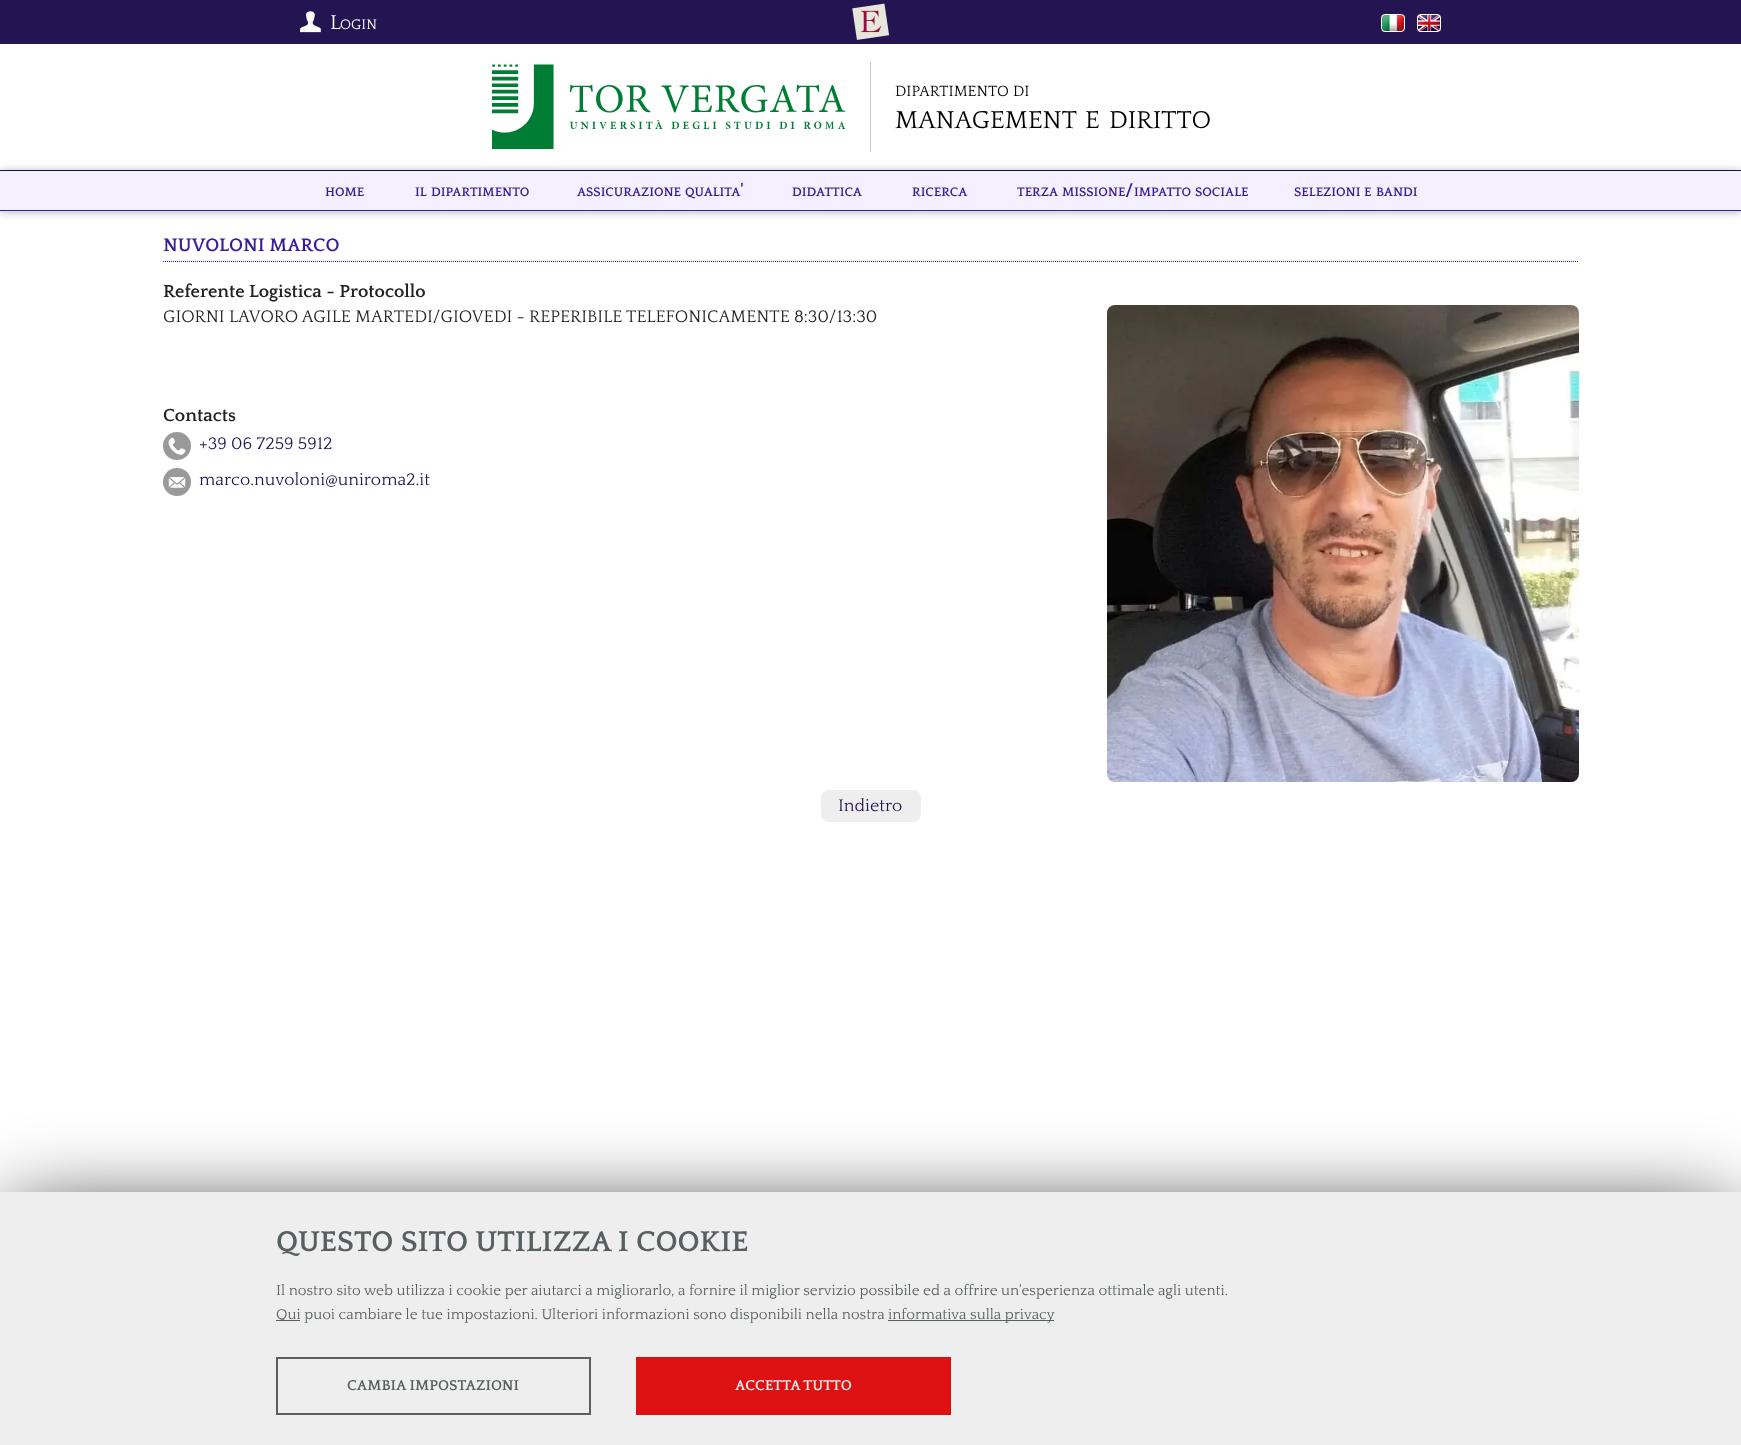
(async () => {
  const canvas = document.querySelector("canvas");
  canvas.width = 1741;
  canvas.height = 1445;
  const ctx = canvas.getContext("2d");
  ctx.miterLimit = 4;
  ctx.fontKerning = "normal";
  async function loadImage(src) {
    const img = new Image();
    img.src = src;
    await img.decode();
    return img;
  }
  let path;

  ctx.fillStyle = "#ffffff";
  ctx.fillRect(0, 0, 1741, 1445);
  ctx.fillStyle = "#241452";
  ctx.fillRect(0, 170, 1741, 1);
  ctx.fillRect(0, 0, 1741, 44);
  ctx.drawImage(await loadImage("img/1.png"), 300, 11, 21, 22);
  ctx.drawImage(await loadImage("img/2.png"), 852, 3, 37, 37);
  ctx.drawImage(await loadImage("img/3.png"), 1381, 14, 24, 18);
  ctx.beginPath();
  ctx.roundRect(1381.5, 14.5, 23, 17, 3.5);
  ctx.strokeStyle = "#ffffff";
  ctx.stroke();
  ctx.drawImage(await loadImage("img/4.png"), 1417, 14, 24, 18);
  ctx.beginPath();
  ctx.roundRect(1417.5, 14.5, 23, 17, 3.5);
  ctx.stroke();
  ctx.fillStyle = "#c5c5c5";
  ctx.fillRect(870, 62, 1, 90);
  ctx.drawImage(await loadImage("img/5.png"), 492, 64, 354, 85);
  ctx.fillStyle = "rgba(0, 0, 0, 0.3)";
  ctx.filter = "blur(4px)";
  ctx.beginPath();
  ctx.rect(0, 171, 1741, 41);
  ctx.fill();
  ctx.filter = "none";
  for (const [x, y, w, h, color] of [
    [0, 211, 1741, 1, "#dddddd"],
    [0, 171, 1741, 39, "#f4f0ff"],
    [0, 210, 1741, 1, "#3a1b98"],
  ]) {
    ctx.fillStyle = color;
    ctx.fillRect(x, y, w, h);
  }
  path = new Path2D("M163 261.5H1579");
  ctx.strokeStyle = "#3a1b98";
  ctx.setLineDash([1, 1]);
  ctx.stroke(path);
  ctx.fillStyle = "#999999";
  ctx.beginPath();
  ctx.arc(177, 446, 14, 0, Math.PI * 2);
  ctx.fill();
  ctx.drawImage(await loadImage("img/6.png"), 168, 437, 18, 18);
  ctx.beginPath();
  ctx.arc(177, 482, 14, 0, Math.PI * 2);
  ctx.fill();
  ctx.drawImage(await loadImage("img/7.png"), 168, 477, 18, 11);
  ctx.drawImage(await loadImage("img/8.png"), 1107, 305, 472, 477);
  ctx.fillStyle = "#eeeeee";
  ctx.beginPath();
  ctx.roundRect(821, 790, 100, 32, 8);
  ctx.fill();
  ctx.fillStyle = "#000000";
  ctx.filter = "blur(44px)";
  ctx.beginPath();
  ctx.rect(9, 1218, 1723, 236);
  ctx.fill();
  ctx.filter = "none";
  for (const [x, y, w, h, color] of [
    [0, 1192, 1741, 253, "#eeeeee"],
    [276, 1320, 24, 1, "#595f60"],
    [888, 1320, 166, 1, "#595f60"],
  ]) {
    ctx.fillStyle = color;
    ctx.fillRect(x, y, w, h);
  }
  ctx.strokeStyle = "#595f60";
  ctx.lineWidth = 2;
  ctx.setLineDash([]);
  ctx.strokeRect(277, 1358, 313, 56);
  ctx.fillStyle = "#dd1111";
  ctx.fillRect(636, 1357, 315, 58);
  ctx.font = "21px Quattrocento";
  ctx.fillStyle = "#ffffff";
  ctx.fillText("L", 330, 29);
  ctx.font = "14.5px Quattrocento";
  ctx.fillText("OGIN", 340, 29);
  ctx.font = "15.5px Quattrocento";
  ctx.fillStyle = "#000000";
  ctx.fillText("DIPARTIMENTO", 895, 96);
  ctx.fillText("DI", 1013, 96);
  ctx.font = "25.75px Quattrocento";
  for (const [text, x, y] of [
    ["MANAGEMENT", 895, 128],
    ["E", 1085, 128],
    ["DIRITTO", 1109, 128],
  ]) {
    ctx.fillText(text, x, y);
  }
  ctx.font = "bold 13px Quattrocento";
  ctx.fillStyle = "#3a1b98";
  for (const [text, x, y] of [
    ["HOME", 325, 196],
    ["IL", 415, 196],
    ["DIPARTIMENTO", 431, 196],
  ]) {
    ctx.fillText(text, x, y);
  }
  ctx.font = "bold 18px Quattrocento";
  ctx.fillText("'", 740, 196);
  ctx.font = "bold 13px Quattrocento";
  for (const [text, x, y] of [
    ["ASSICURAZIONE", 577, 196],
    ["QUALITA", 685, 196],
    ["DIDATTICA", 792, 196],
    ["RICERCA", 912, 196],
    ["TERZA", 1017, 196],
    ["MISSIONE", 1062, 196],
  ]) {
    ctx.fillText(text, x, y);
  }
  ctx.font = "bold 18px Quattrocento";
  ctx.fillText("/", 1125, 196);
  ctx.font = "bold 13px Quattrocento";
  for (const [text, x, y] of [
    ["IMPATTO", 1134, 196],
    ["SOCIALE", 1195, 196],
    ["SELEZIONI", 1294, 196],
    ["E", 1364, 196],
    ["BANDI", 1376, 196],
  ]) {
    ctx.fillText(text, x, y);
  }
  ctx.font = "bold 19px Quattrocento";
  ctx.fillText("NUVOLONI MARCO", 163, 251);
  ctx.font = "bold 18.4px Quattrocento";
  ctx.fillStyle = "#222222";
  ctx.fillText("Referente Logistica - Protocollo", 163, 297);
  ctx.font = "17.6px Quattrocento";
  ctx.fillText("GIORNI LAVORO AGILE MARTEDI/GIOVEDI - REPERIBILE TELEFONICAMENTE 8:30/13:30", 163, 322);
  ctx.font = "bold 18.4px Quattrocento";
  ctx.fillText("Contacts", 163, 421);
  ctx.font = "17.6px Quattrocento";
  ctx.fillStyle = "#241452";
  for (const [text, x, y] of [
    ["+39 06 7259 5912", 199, 449],
    ["marco.nuvoloni@uniroma2.it", 199, 485],
    ["Indietro", 838, 811],
  ]) {
    ctx.fillText(text, x, y);
  }
  ctx.font = "bold 30px Quattrocento";
  ctx.fillStyle = "#595f60";
  ctx.fillText("QUESTO SITO UTILIZZA I COOKIE", 276, 1251);
  ctx.font = "15px Quattrocento";
  for (const [text, x, y] of [
    ["Il nostro sito web utilizza i cookie per aiutarci a migliorarlo, a fornire il miglior servizio possibile ed a offrire un'esperienza ottimale agli utenti.", 276, 1295],
    ["Qui puoi cambiare le tue impostazioni. Ulteriori informazioni sono disponibili nella nostra", 276, 1319],
    ["informativa sulla privacy", 888, 1319],
  ]) {
    ctx.fillText(text, x, y);
  }
  ctx.font = "bold 15px Quattrocento";
  ctx.fillText("CAMBIA IMPOSTAZIONI", 347, 1390);
  ctx.fillStyle = "#eeeeee";
  ctx.fillText("ACCETTA TUTTO", 735, 1390);
})();
